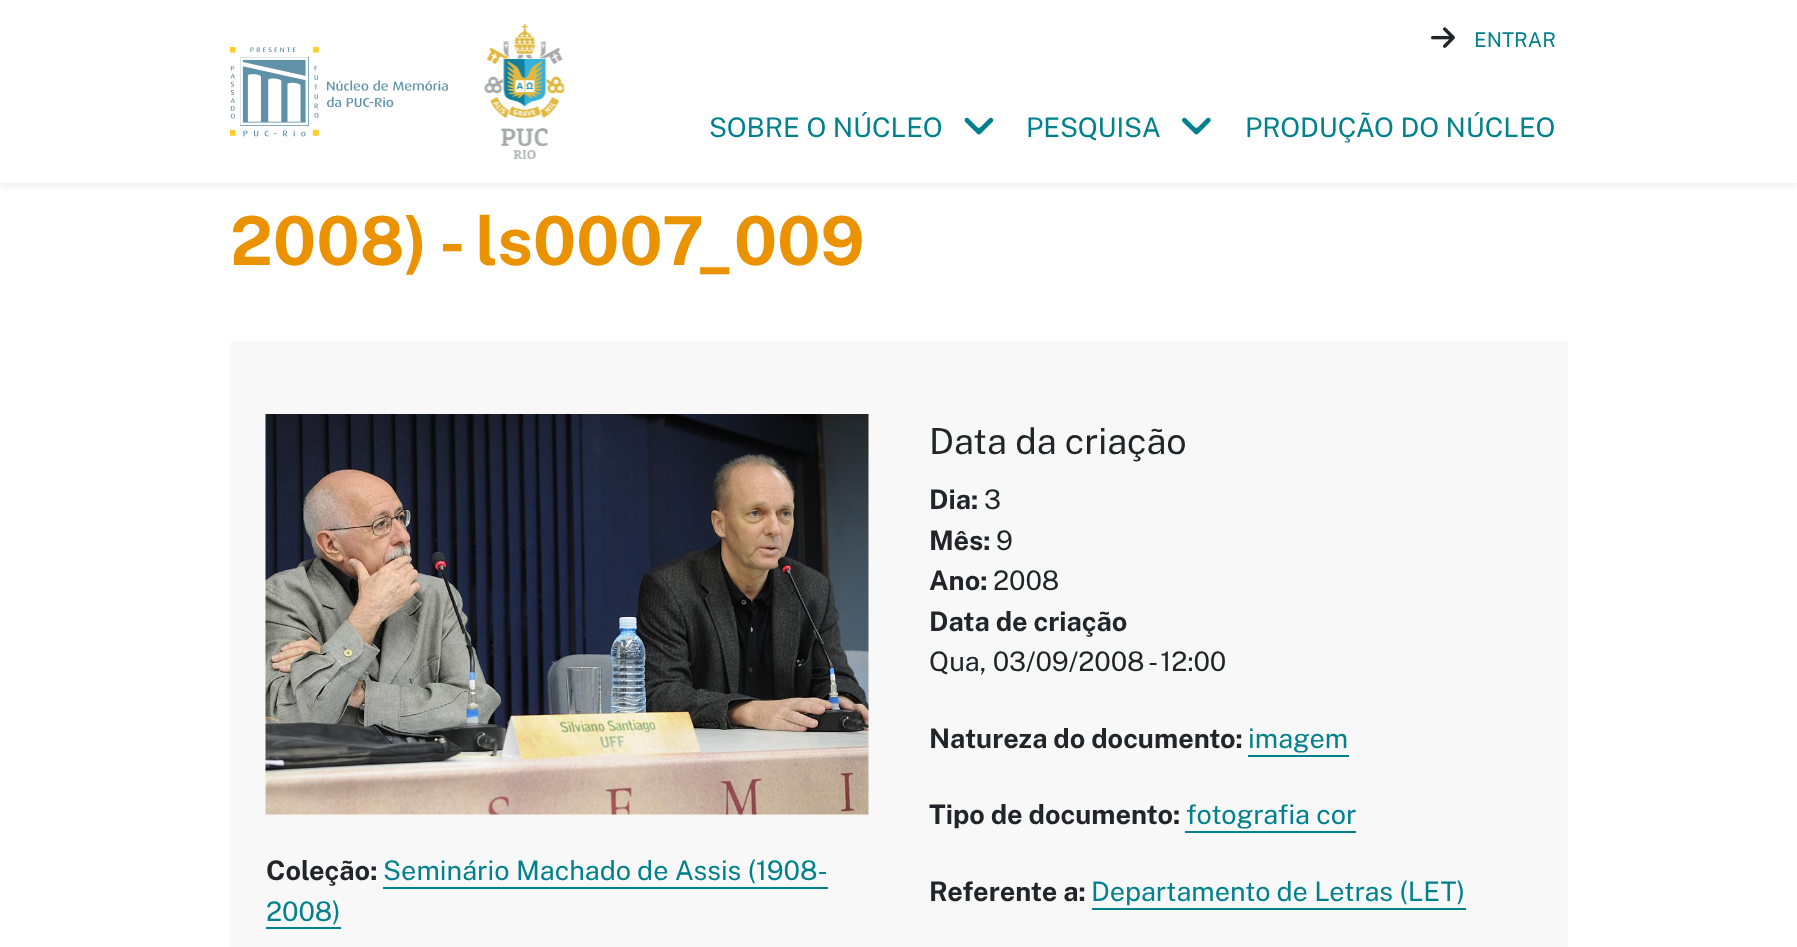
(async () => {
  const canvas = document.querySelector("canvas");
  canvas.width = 1797;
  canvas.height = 947;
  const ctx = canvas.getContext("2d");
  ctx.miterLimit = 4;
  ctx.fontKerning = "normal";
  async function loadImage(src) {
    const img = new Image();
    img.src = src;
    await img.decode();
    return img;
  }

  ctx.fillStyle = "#ffffff";
  ctx.fillRect(0, 0, 1797, 947);
  ctx.fillStyle = "rgba(0, 0, 0, 0.07)";
  ctx.filter = "blur(3px)";
  ctx.beginPath();
  ctx.rect(0, 3, 1797, 183);
  ctx.fill();
  ctx.filter = "none";
  ctx.fillStyle = "#ffffff";
  ctx.fillRect(0, 0, 1797, 183);
  ctx.drawImage(await loadImage("img/1.png"), 230, 47, 218, 90);
  ctx.drawImage(await loadImage("img/2.png"), 484, 24, 81, 135);
  ctx.drawImage(await loadImage("img/3.png"), 1431, 27, 24, 21);
  ctx.drawImage(await loadImage("img/4.png"), 964, 117, 30, 18);
  ctx.drawImage(await loadImage("img/5.png"), 1182, 117, 29, 18);
  ctx.fillStyle = "#f8f8f8";
  ctx.fillRect(230, 342, 1338, 605);
  ctx.drawImage(await loadImage("img/6.png"), 265, 414, 604, 401);
  for (const [x, y, w, h, color] of [
    [383, 887, 445, 2, "#00818b"],
    [266, 927, 75, 2, "#00818b"],
    [1248, 755, 101, 2, "#00818b"],
    [1185, 831, 171, 2, "#00818b"],
    [1092, 908, 374, 2, "#00818b"],
  ]) {
    ctx.fillStyle = color;
    ctx.fillRect(x, y, w, h);
  }
  ctx.font = "20.25px Public Sans";
  ctx.fillText("ENTRAR", 1474, 47);
  ctx.font = "27px Public Sans";
  for (const [text, x, y] of [
    ["SOBRE O NÚCLEO", 709, 137],
    ["PESQUISA", 1026, 137],
    ["PRODUÇÃO DO NÚCLEO", 1245, 137],
  ]) {
    ctx.fillText(text, x, y);
  }
  ctx.font = "bold 67.5px Public Sans";
  ctx.fillStyle = "#ea9200";
  ctx.fillText("2008) - ls0007_009", 230, 265);
  ctx.font = "bold 27px Public Sans";
  ctx.fillStyle = "#212529";
  ctx.fillText("Coleção:", 266, 880);
  ctx.font = "27px Public Sans";
  ctx.fillStyle = "#00818b";
  ctx.fillText("Seminário Machado de Assis (1908-", 383, 880);
  ctx.fillText("2008)", 266, 921);
  ctx.font = "36px Public Sans";
  ctx.fillStyle = "#212529";
  ctx.fillText("Data da criação", 929, 454);
  ctx.font = "bold 27px Public Sans";
  ctx.fillText("Dia:", 929, 509);
  ctx.font = "27px Public Sans";
  ctx.fillText("3", 984, 509);
  ctx.font = "bold 27px Public Sans";
  ctx.fillText("Mês:", 929, 550);
  ctx.font = "27px Public Sans";
  ctx.fillText("9", 996, 550);
  ctx.font = "bold 27px Public Sans";
  ctx.fillText("Ano:", 929, 590);
  ctx.font = "27px Public Sans";
  ctx.fillText("2008", 993, 590);
  ctx.font = "bold 27px Public Sans";
  ctx.fillText("Data de criação", 929, 631);
  ctx.font = "27px Public Sans";
  ctx.fillText("Qua, 03/09/2008 - 12:00", 929, 671);
  ctx.font = "bold 27px Public Sans";
  ctx.fillText("Natureza do documento:", 929, 748);
  ctx.font = "27px Public Sans";
  ctx.fillStyle = "#00818b";
  ctx.fillText("imagem", 1248, 748);
  ctx.font = "bold 27px Public Sans";
  ctx.fillStyle = "#212529";
  ctx.fillText("Tipo de documento:", 929, 824);
  ctx.font = "27px Public Sans";
  ctx.fillStyle = "#00818b";
  ctx.fillText("fotografia cor", 1186, 824);
  ctx.font = "bold 27px Public Sans";
  ctx.fillStyle = "#212529";
  ctx.fillText("Referente a:", 929, 901);
  ctx.font = "27px Public Sans";
  ctx.fillStyle = "#00818b";
  ctx.fillText("Departamento de Letras (LET)", 1091, 901);
})();
